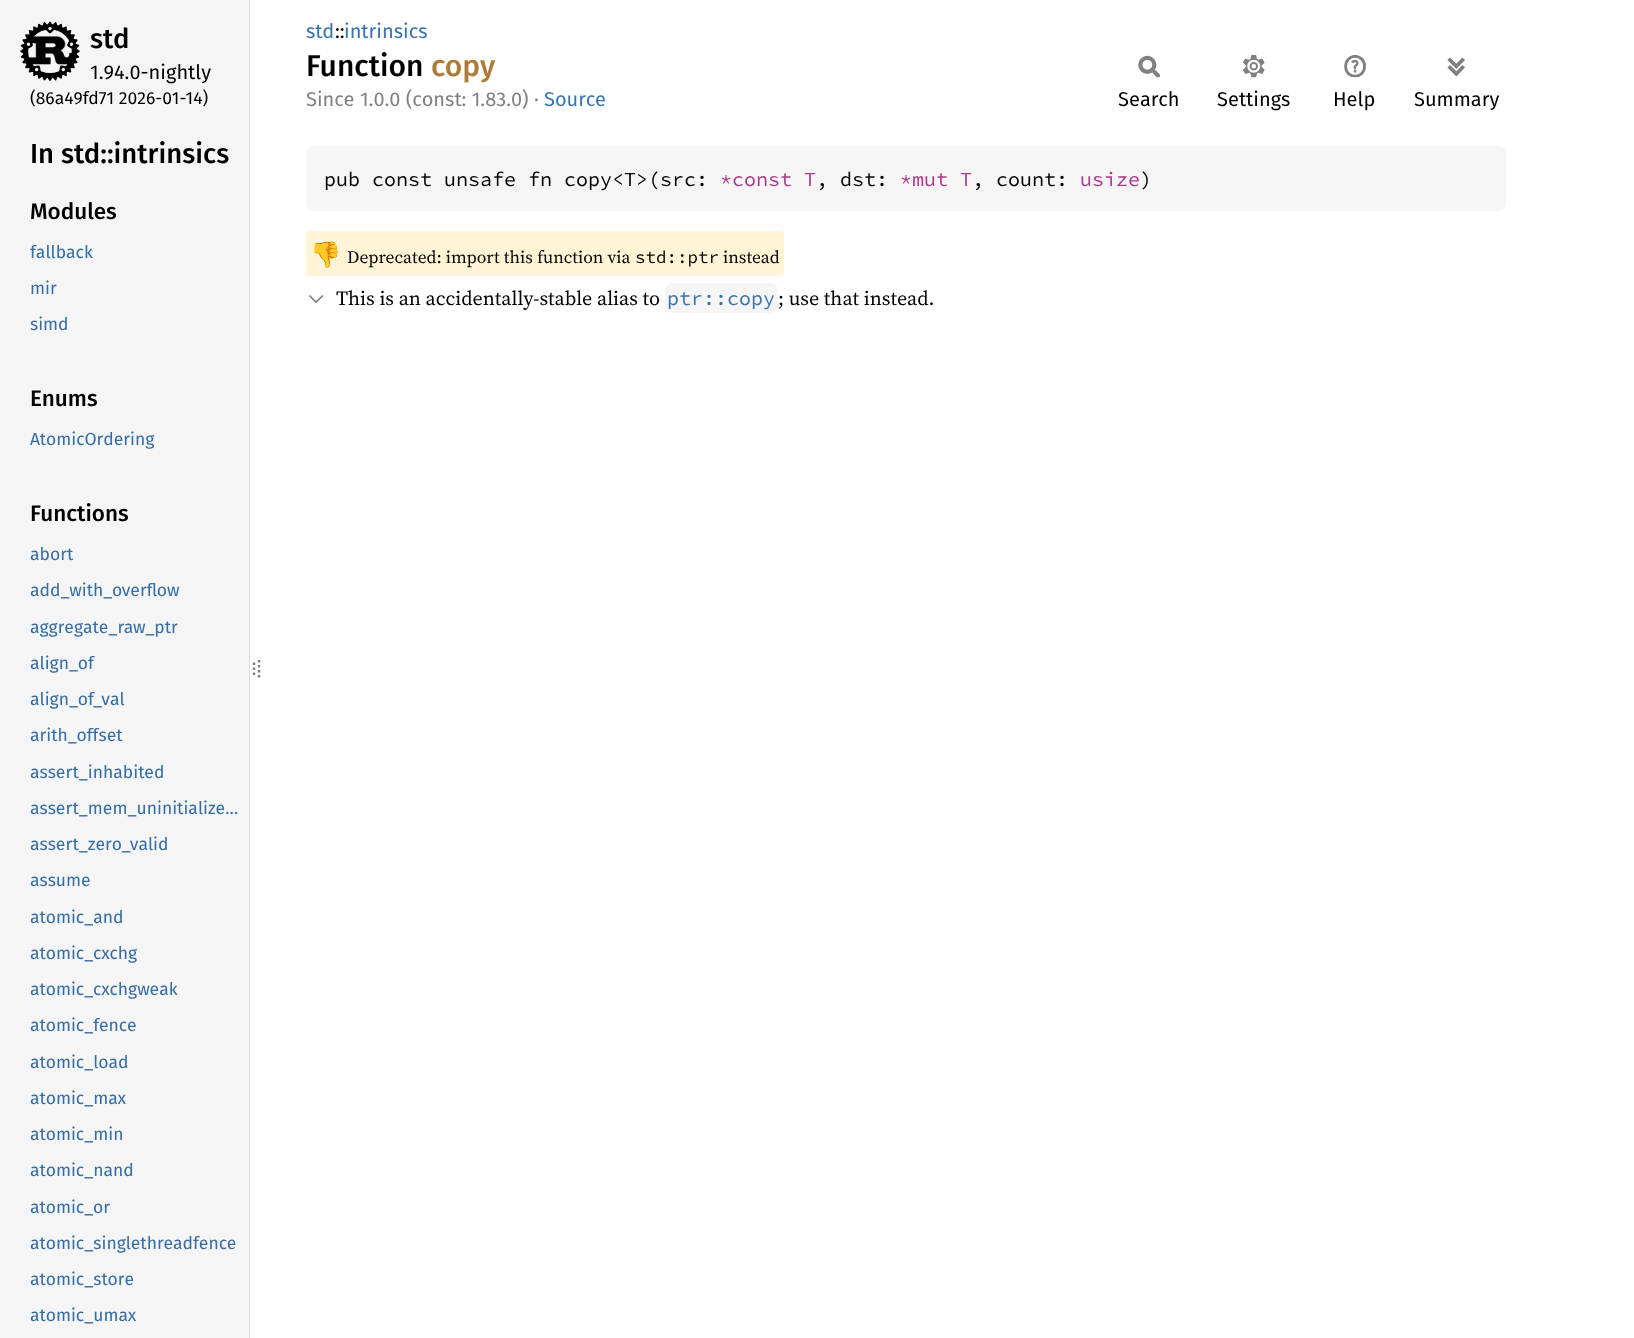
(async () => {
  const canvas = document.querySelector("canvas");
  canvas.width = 1634;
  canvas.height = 1338;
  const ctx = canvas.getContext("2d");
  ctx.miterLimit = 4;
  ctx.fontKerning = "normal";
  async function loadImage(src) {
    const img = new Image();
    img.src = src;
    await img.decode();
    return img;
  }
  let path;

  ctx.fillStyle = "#ffffff";
  ctx.fillRect(0, 0, 1634, 1338);
  ctx.fillStyle = "#f5f5f5";
  ctx.fillRect(0, 0, 249, 1338);
  ctx.fillStyle = "#dddddd";
  ctx.fillRect(249, 0, 1, 1338);
  ctx.drawImage(await loadImage("img/1.png"), 20, 21, 60, 60);
  path = new Path2D("M254 662.5V665M254 667.5V670M254 672.5V675");
  ctx.strokeStyle = "#808080";
  ctx.lineWidth = 2.5;
  ctx.stroke(path);
  path = new Path2D("M259 660V680");
  ctx.setLineDash([2.5, 2.5]);
  ctx.stroke(path);
  ctx.drawImage(await loadImage("img/2.png"), 1138, 55, 22, 23);
  ctx.drawImage(await loadImage("img/3.png"), 1243, 55, 22, 23);
  ctx.drawImage(await loadImage("img/4.png"), 1344, 55, 22, 23);
  ctx.drawImage(await loadImage("img/5.png"), 1447, 57, 18, 20);
  ctx.fillStyle = "#f5f5f5";
  ctx.beginPath();
  ctx.roundRect(306, 146, 1200, 65, 8);
  ctx.fill();
  ctx.fillStyle = "#fff5d6";
  ctx.beginPath();
  ctx.roundRect(306, 231, 478, 45, 4);
  ctx.fill();
  path = new Path2D("M309.5 295.5L316 302L323 295.5");
  ctx.lineWidth = 1.7;
  ctx.setLineDash([]);
  ctx.stroke(path);
  ctx.fillStyle = "#f5f5f5";
  ctx.beginPath();
  ctx.roundRect(665, 283, 113, 30, 8);
  ctx.fill();
  ctx.font = "500 27.5px Fira Sans";
  ctx.fillStyle = "#000000";
  ctx.fillText("std", 90, 48);
  ctx.font = "20px Fira Sans";
  ctx.fillText("1.94.0-nightly", 90, 79);
  ctx.font = "17.5px Fira Sans";
  ctx.fillText("(86a49fd71 2026-01-14)", 30, 104);
  ctx.font = "500 27.5px Fira Sans";
  ctx.fillText("In std::intrinsics", 30, 163);
  ctx.font = "500 22.5px Fira Sans";
  ctx.fillText("Modules", 30, 219);
  ctx.font = "17.5px Fira Sans";
  ctx.fillStyle = "#356da4";
  for (const [text, x, y] of [
    ["fallback", 30, 258],
    ["mir", 30, 294],
    ["simd", 30, 330],
  ]) {
    ctx.fillText(text, x, y);
  }
  ctx.font = "500 22.5px Fira Sans";
  ctx.fillStyle = "#000000";
  ctx.fillText("Enums", 30, 406);
  ctx.font = "17.5px Fira Sans";
  ctx.fillStyle = "#356da4";
  ctx.fillText("AtomicOrdering", 30, 445);
  ctx.font = "500 22.5px Fira Sans";
  ctx.fillStyle = "#000000";
  ctx.fillText("Functions", 30, 521);
  ctx.font = "17.5px Fira Sans";
  ctx.fillStyle = "#356da4";
  for (const [text, x, y] of [
    ["abort", 30, 560],
    ["add_with_overflow", 30, 596],
    ["aggregate_raw_ptr", 30, 633],
    ["align_of", 30, 669],
    ["align_of_val", 30, 705],
    ["arith_offset", 30, 741],
    ["assert_inhabited", 30, 778],
    ["assert_mem_uninitialize…", 30, 814],
    ["assert_zero_valid", 30, 850],
    ["assume", 30, 886],
    ["atomic_and", 30, 923],
    ["atomic_cxchg", 30, 959],
    ["atomic_cxchgweak", 30, 995],
    ["atomic_fence", 30, 1031],
    ["atomic_load", 30, 1068],
    ["atomic_max", 30, 1104],
    ["atomic_min", 30, 1140],
    ["atomic_nand", 30, 1176],
    ["atomic_or", 30, 1213],
    ["atomic_singlethreadfence", 30, 1249],
    ["atomic_store", 30, 1285],
    ["atomic_umax", 30, 1321],
  ]) {
    ctx.fillText(text, x, y);
  }
  ctx.font = "20px Fira Sans";
  ctx.fillStyle = "#3873ad";
  ctx.fillText("std", 306, 38);
  ctx.fillStyle = "#000000";
  ctx.fillText("::", 335, 38);
  ctx.fillStyle = "#3873ad";
  ctx.fillText("intrinsics", 344, 38);
  ctx.font = "500 30px Fira Sans";
  ctx.fillStyle = "#000000";
  ctx.fillText("Function", 306, 76);
  ctx.fillStyle = "#ad7c37";
  ctx.fillText("copy", 431, 76);
  ctx.font = "20px Fira Sans";
  ctx.fillStyle = "#808080";
  ctx.fillText("Since 1.0.0 (const: 1.83.0) ·", 306, 106);
  ctx.fillStyle = "#3873ad";
  ctx.fillText("Source", 544, 106);
  ctx.fillStyle = "#000000";
  for (const [text, x, y] of [
    ["Search", 1118, 106],
    ["Settings", 1217, 106],
    ["Help", 1333, 106],
    ["Summary", 1414, 106],
  ]) {
    ctx.fillText(text, x, y);
  }
  ctx.font = "20px Source Code Pro";
  ctx.fillText("pub const unsafe fn copy<T>(src:", 324, 186);
  ctx.fillStyle = "#ad378a";
  ctx.fillText("*const T", 720, 186);
  ctx.fillStyle = "#000000";
  ctx.fillText(", dst:", 816, 186);
  ctx.fillStyle = "#ad378a";
  ctx.fillText("*mut T", 900, 186);
  ctx.fillStyle = "#000000";
  ctx.fillText(", count:", 972, 186);
  ctx.fillStyle = "#ad378a";
  ctx.fillText("usize", 1080, 186);
  ctx.fillStyle = "#000000";
  ctx.fillText(")", 1140, 186);
  ctx.font = "25px Noto Color Emoji";
  ctx.fillText("👎", 310, 263);
  ctx.font = "17.5px 'Source Serif 4'";
  ctx.fillText("Deprecated: import this function via", 347, 263);
  ctx.font = "17.5px Source Code Pro";
  ctx.fillText("std::ptr", 635, 263);
  ctx.font = "17.5px 'Source Serif 4'";
  ctx.fillText("instead", 723, 263);
  ctx.font = "20px 'Source Serif 4'";
  ctx.fillText("This is an accidentally-stable alias to", 336, 305);
  ctx.font = "20px Source Code Pro";
  ctx.fillStyle = "#3873ad";
  ctx.fillText("ptr::copy", 667, 305);
  ctx.font = "20px 'Source Serif 4'";
  ctx.fillStyle = "#000000";
  ctx.fillText("; use that instead.", 778, 305);
})();
